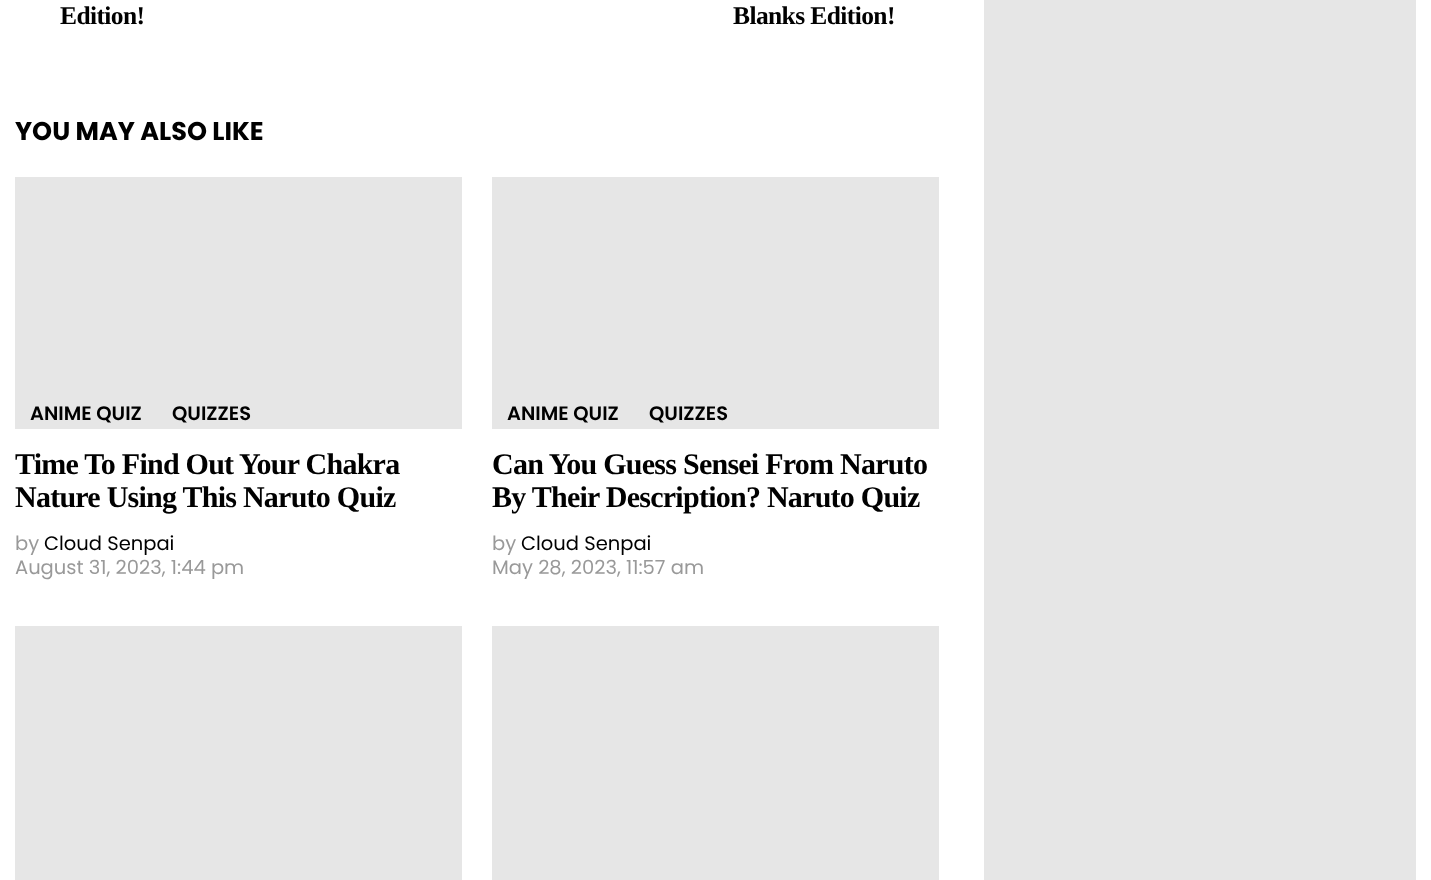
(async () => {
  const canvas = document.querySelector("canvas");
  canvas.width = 1431;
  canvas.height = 880;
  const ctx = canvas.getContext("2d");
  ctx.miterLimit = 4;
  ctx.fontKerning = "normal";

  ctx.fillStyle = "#ffffff";
  ctx.fillRect(0, 0, 1431, 880);
  for (const [x, y, w, h, color] of [
    [15, 177, 447, 252, "#e6e6e6"],
    [492, 177, 447, 252, "#e6e6e6"],
    [15, 626, 447, 254, "#e6e6e6"],
    [492, 626, 447, 254, "#e6e6e6"],
    [984, 0, 432, 880, "#e6e6e6"],
  ]) {
    ctx.fillStyle = color;
    ctx.fillRect(x, y, w, h);
  }
  ctx.letterSpacing = "-0.6px";
  ctx.font = "bold 25.5px Liberation Serif";
  ctx.fillStyle = "#000000";
  ctx.fillText("Edition!", 60, 24);
  ctx.fillText("Blanks Edition!", 733, 24);
  ctx.letterSpacing = "0px";
  ctx.font = "bold 25.5px Poppins";
  ctx.fillText("YOU MAY ALSO LIKE", 15, 140);
  ctx.font = "600 19.5px Poppins";
  ctx.fillText("ANIME QUIZ", 30, 420);
  ctx.fillText("QUIZZES", 172, 420);
  ctx.letterSpacing = "-0.75px";
  ctx.font = "bold 30px Liberation Serif";
  ctx.fillText("Time To Find Out Your Chakra", 15, 474);
  ctx.fillText("Nature Using This Naruto Quiz", 15, 507);
  ctx.letterSpacing = "0px";
  ctx.font = "19.5px Poppins";
  ctx.fillStyle = "#999999";
  ctx.fillText("by", 15, 550);
  ctx.fillStyle = "#000000";
  ctx.fillText("Cloud Senpai", 44, 550);
  ctx.fillStyle = "#999999";
  ctx.fillText("August 31, 2023, 1:44 pm", 15, 574);
  ctx.font = "600 19.5px Poppins";
  ctx.fillStyle = "#000000";
  ctx.fillText("ANIME QUIZ", 507, 420);
  ctx.fillText("QUIZZES", 649, 420);
  ctx.letterSpacing = "-0.75px";
  ctx.font = "bold 30px Liberation Serif";
  ctx.fillText("Can You Guess Sensei From Naruto", 492, 474);
  ctx.fillText("By Their Description? Naruto Quiz", 492, 507);
  ctx.letterSpacing = "0px";
  ctx.font = "19.5px Poppins";
  ctx.fillStyle = "#999999";
  ctx.fillText("by", 492, 550);
  ctx.fillStyle = "#000000";
  ctx.fillText("Cloud Senpai", 521, 550);
  ctx.fillStyle = "#999999";
  ctx.fillText("May 28, 2023, 11:57 am", 492, 574);
})();
